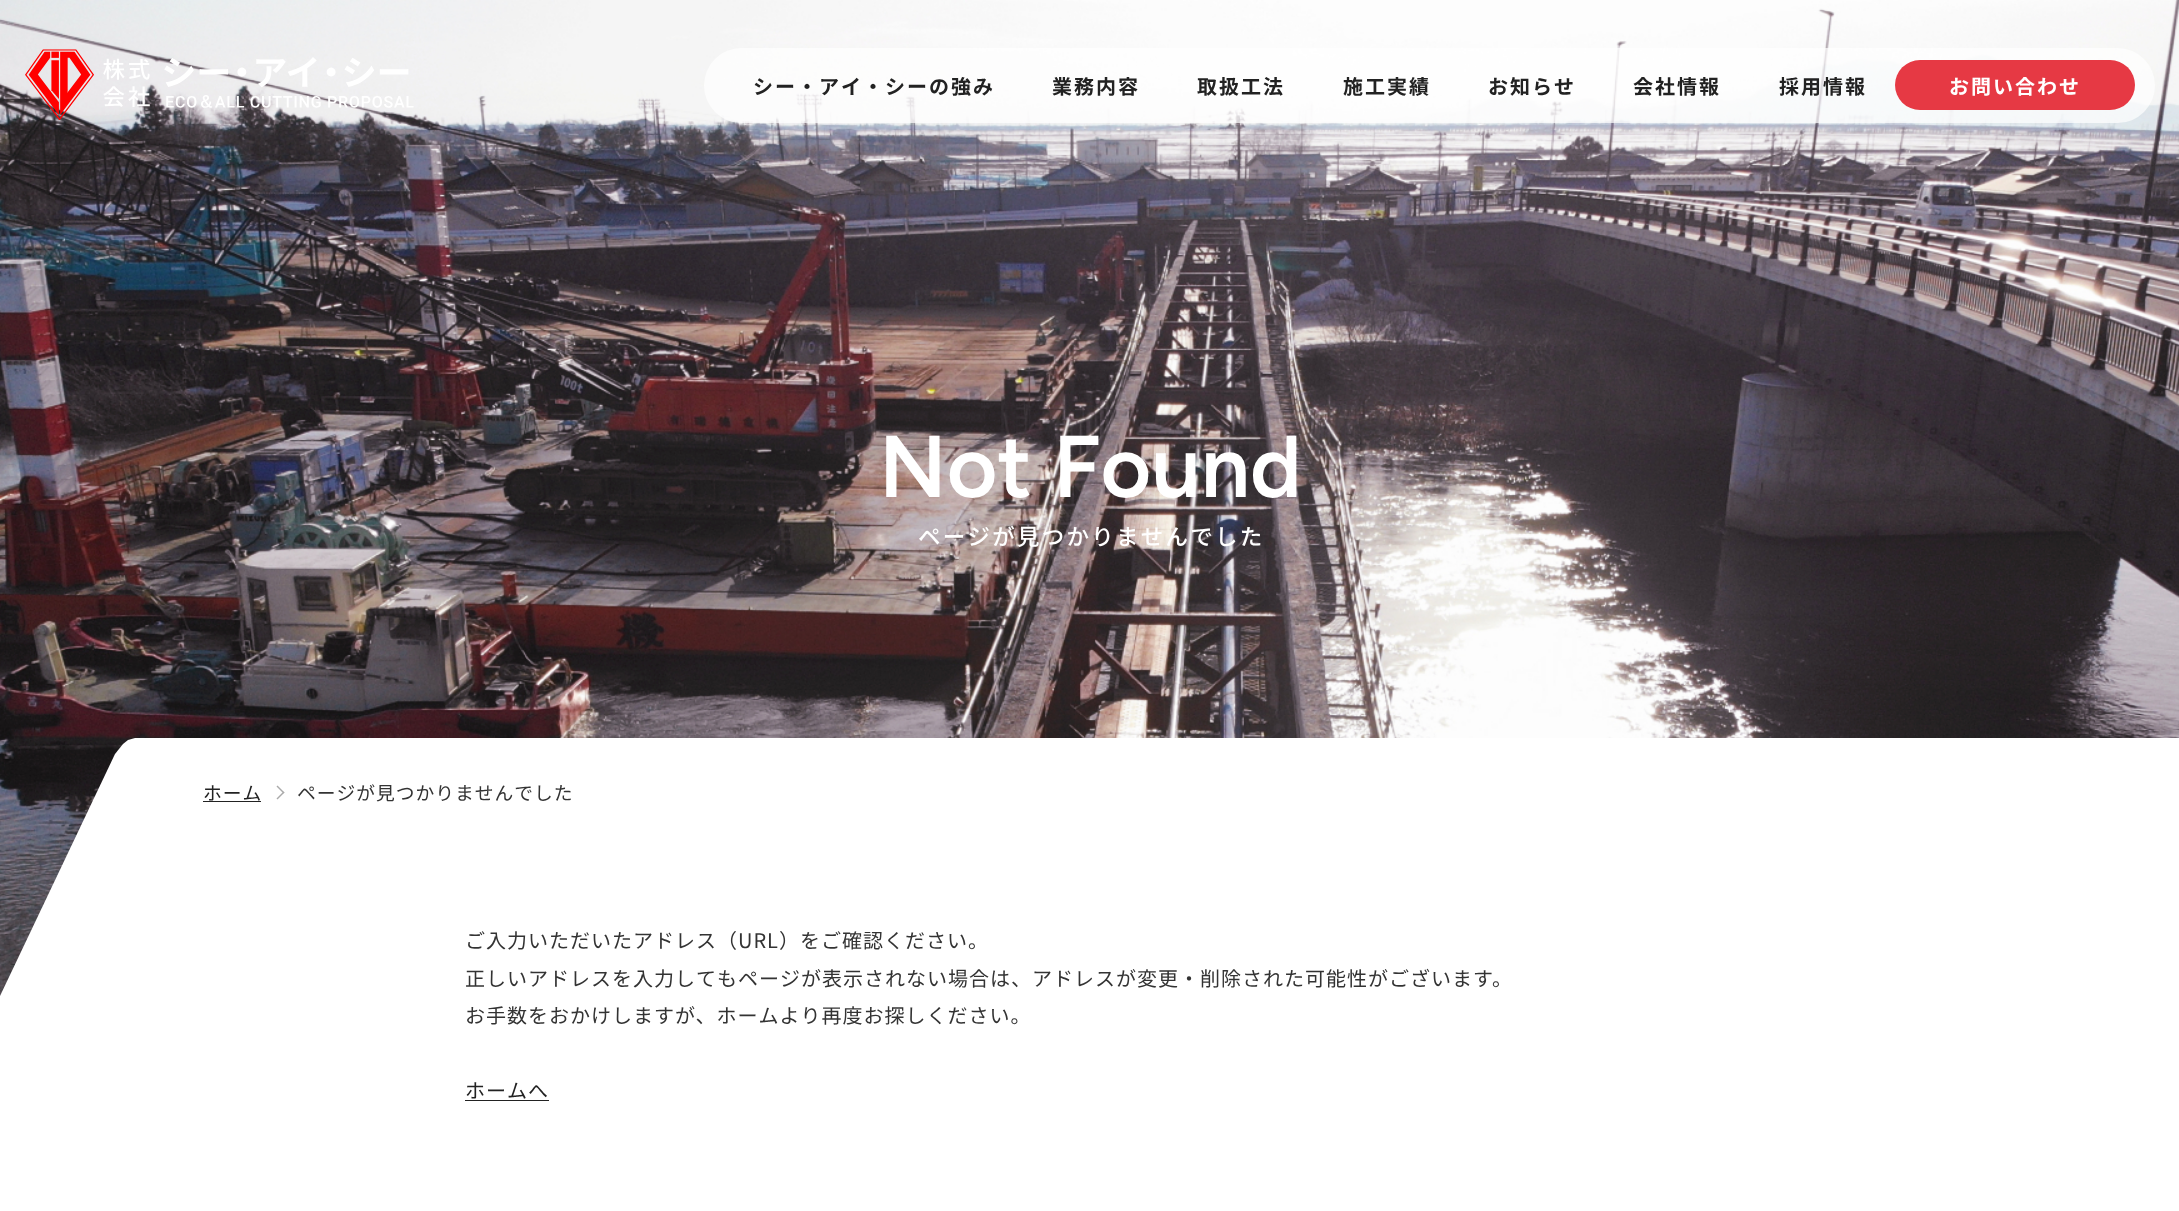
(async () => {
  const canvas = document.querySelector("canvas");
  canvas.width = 2179;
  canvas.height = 1211;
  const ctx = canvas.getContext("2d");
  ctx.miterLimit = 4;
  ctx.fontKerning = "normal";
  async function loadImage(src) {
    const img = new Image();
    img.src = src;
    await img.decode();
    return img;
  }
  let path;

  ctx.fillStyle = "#ffffff";
  ctx.fillRect(0, 0, 2179, 1211);
  ctx.drawImage(await loadImage("img/2.png"), 0, 0, 2179, 996);
  ctx.drawImage(await loadImage("img/1.png"), 25, 49, 389, 71);
  ctx.fillStyle = "rgba(255, 255, 255, 0.7)";
  ctx.beginPath();
  ctx.roundRect(704, 48, 1451, 75, 37.5);
  ctx.fill();
  ctx.fillStyle = "#e63944";
  ctx.beginPath();
  ctx.roundRect(1895, 60, 240, 50, 25);
  ctx.fill();
  ctx.fillStyle = "#ffffff";
  path = new Path2D("M0 996V1002H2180V738H135L128 740L123 744L119 749L115 754Z");
  ctx.fill(path);
  ctx.fillStyle = "#222222";
  ctx.fillRect(203, 801, 58, 1);
  ctx.fillStyle = "#aaaaaa";
  path = new Path2D("M277.5 785.5L284.5 792.5L283.5 793.5L276.5 786.5Z");
  ctx.fill(path);
  path = new Path2D("M283.5 791.5L284.5 792.5L277.5 799.5L276.5 798.5Z");
  ctx.fill(path);
  ctx.drawImage(await loadImage("img/3.png"), 0, 1085, 2179, 126);
  ctx.fillStyle = "#222222";
  ctx.fillRect(465, 1100, 84, 1);
  ctx.letterSpacing = "2px";
  ctx.font = "bold 20px Noto Sans JP";
  for (const [text, x, y] of [
    ["シー・アイ・シーの強み", 753, 94],
    ["業務内容", 1052, 94],
    ["取扱工法", 1197, 94],
    ["施工実績", 1343, 94],
    ["お知らせ", 1488, 94],
    ["会社情報", 1633, 94],
    ["採用情報", 1779, 94],
  ]) {
    ctx.fillText(text, x, y);
  }
  ctx.fillStyle = "#ffffff";
  ctx.fillText("お問い合わせ", 1949, 94);
  ctx.letterSpacing = "0px";
  ctx.font = "600 87.5px Figtree";
  ctx.fillText("Not Found", 879, 497);
  ctx.letterSpacing = "2.25px";
  ctx.font = "500 22.5px Noto Sans JP";
  ctx.fillText("ページが見つかりませんでした", 918, 545);
  ctx.letterSpacing = "1px";
  ctx.font = "18.75px Noto Sans JP";
  ctx.fillStyle = "#222222";
  ctx.fillText("ホーム", 203, 800);
  ctx.fillStyle = "#333333";
  ctx.fillText("ページが見つかりませんでした", 297, 800);
  ctx.font = "20px Noto Sans JP";
  for (const [text, x, y] of [
    ["ご入力いただいたアドレス（URL）をご確認ください。", 465, 948],
    ["正しいアドレスを入力してもページが表示されない場合は、アドレスが変更・削除された可能性がございます。", 465, 986],
    ["お手数をおかけしますが、ホームより再度お探しください。", 465, 1023],
  ]) {
    ctx.fillText(text, x, y);
  }
  ctx.fillStyle = "#222222";
  ctx.fillText("ホームへ", 465, 1098);
})();
